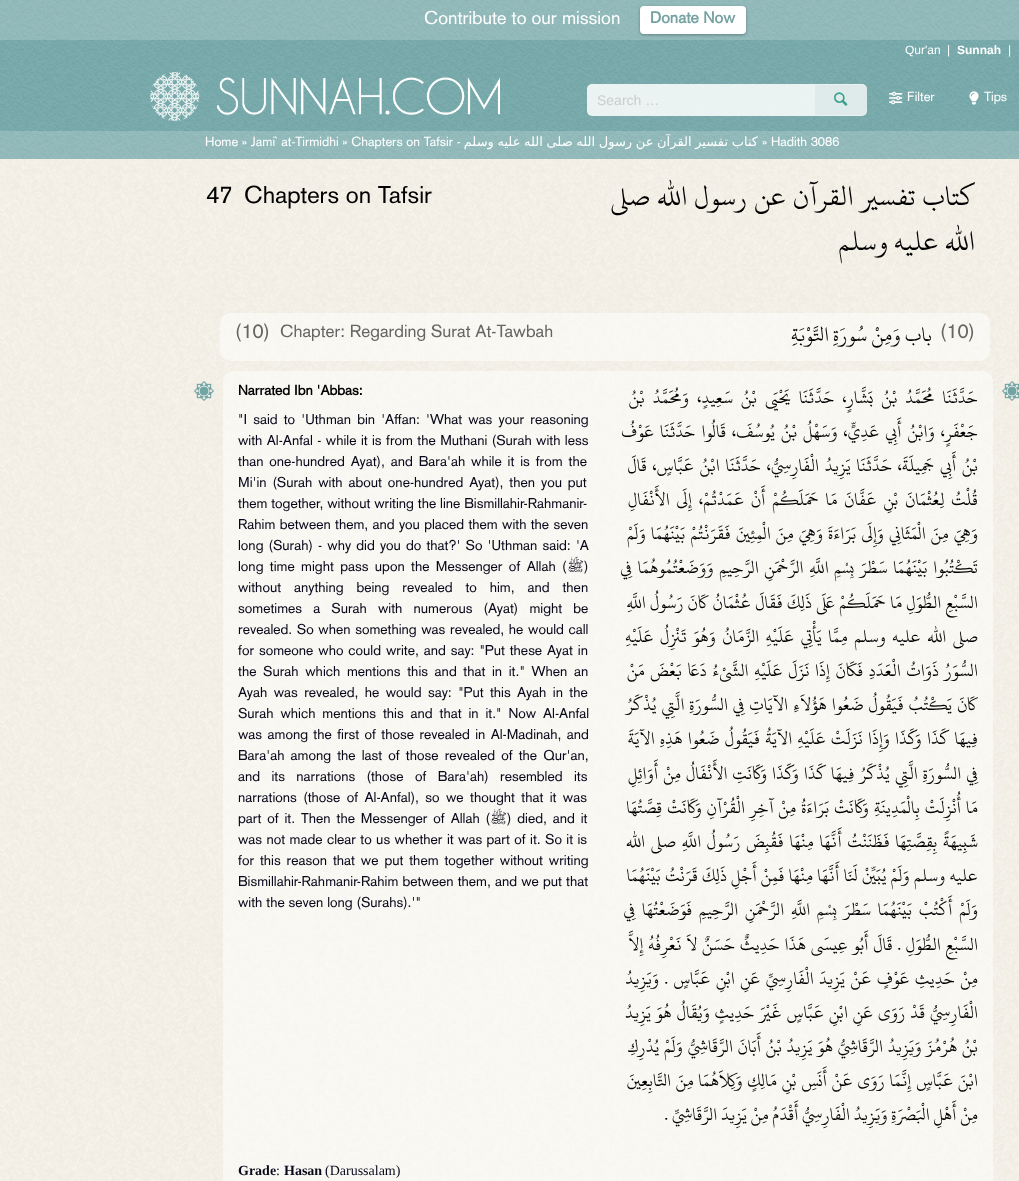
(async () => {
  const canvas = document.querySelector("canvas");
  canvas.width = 1019;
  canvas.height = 1181;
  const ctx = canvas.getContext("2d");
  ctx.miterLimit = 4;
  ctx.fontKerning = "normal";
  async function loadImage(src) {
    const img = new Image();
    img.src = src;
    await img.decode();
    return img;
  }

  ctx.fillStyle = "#ffffff";
  ctx.fillRect(0, 0, 1019, 1181);
  ctx.drawImage(await loadImage("img/1.png"), 0, 159, 1019, 1022);
  ctx.drawImage(await loadImage("img/2.png"), 0, 0, 1019, 159);
  ctx.fillStyle = "rgba(251, 250, 248, 0.2)";
  ctx.fillRect(0, 0, 1019, 40);
  ctx.fillStyle = "rgba(0, 0, 0, 0.3)";
  ctx.filter = "blur(1.5px)";
  ctx.beginPath();
  ctx.roundRect(640, 7, 106, 28, 4);
  ctx.fill();
  ctx.filter = "none";
  ctx.fillStyle = "#ffffff";
  ctx.beginPath();
  ctx.roundRect(640, 6, 106, 28, 4);
  ctx.fill();
  ctx.drawImage(await loadImage("img/3.png"), 969, 91, 10, 14);
  ctx.drawImage(await loadImage("img/4.png"), 889, 91, 14, 14);
  ctx.fillStyle = "rgba(255, 255, 255, 0.85)";
  ctx.beginPath();
  ctx.roundRect(587, 84, 280, 32, 5);
  ctx.fill();
  ctx.fillStyle = "#deebea";
  ctx.beginPath();
  ctx.roundRect(815, 85, 52, 30, [0, 5, 5, 0]);
  ctx.fill();
  ctx.drawImage(await loadImage("img/5.png"), 150, 72, 350, 49);
  ctx.fillStyle = "rgba(251, 250, 248, 0.2)";
  ctx.fillRect(0, 131, 1019, 28);
  ctx.fillStyle = "rgba(255, 255, 255, 0.5)";
  ctx.beginPath();
  ctx.roundRect(220, 313, 770, 48, 10);
  ctx.fill();
  ctx.beginPath();
  ctx.roundRect(223, 371, 770, 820, 10);
  ctx.fill();
  ctx.drawImage(await loadImage("img/6.png"), 1002, 381, 17, 20);
  ctx.drawImage(await loadImage("img/7.png"), 194, 381, 20, 20);
  ctx.font = "bold 16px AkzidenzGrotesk";
  ctx.fillStyle = "#75a1a1";
  ctx.fillText("Donate Now", 650, 23);
  ctx.font = "18.25px AkzidenzGrotesk";
  ctx.fillStyle = "#ffffff";
  ctx.fillText("Contribute to our mission", 424, 24);
  ctx.font = "12px Liberation Sans";
  ctx.fillText("|", 1008, 54);
  ctx.font = "bold 12px Liberation Sans";
  ctx.fillText("Sunnah", 957, 54);
  ctx.font = "12px Liberation Sans";
  ctx.fillText("|", 947, 54);
  ctx.fillText("Qur'an", 905, 54);
  ctx.font = "13px AkzidenzGrotesk";
  ctx.fillText("Tips", 984, 101);
  ctx.fillText("Filter", 907, 101);
  ctx.font = "17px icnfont";
  ctx.fillStyle = "#3ba08f";
  ctx.fillText("l", 834, 105);
  ctx.font = "14px Liberation Sans";
  ctx.fillStyle = "#cccccc";
  ctx.fillText("Search …", 597, 105);
  ctx.wordSpacing = "-0.5px";
  ctx.direction = "rtl";
  ctx.font = "13px DejaVu Sans";
  ctx.fillStyle = "#ffffff";
  ctx.fillText("كتاب تفسير القرآن عن رسول الله صلى الله عليه وسلم", 758, 146);
  ctx.wordSpacing = "0px";
  ctx.direction = "ltr";
  ctx.font = "13px AkzidenzGrotesk";
  ctx.fillText("» Hadith 3086", 762, 146);
  ctx.fillText("Home » Jami` at-Tirmidhi » Chapters on Tafsir -", 205, 146);
  ctx.wordSpacing = "1px";
  ctx.direction = "rtl";
  ctx.font = "30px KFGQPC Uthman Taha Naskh";
  ctx.fillStyle = "#000000";
  ctx.fillText("كتاب تفسير القرآن عن رسول الله صلى", 975, 205);
  ctx.wordSpacing = "0px";
  ctx.fillText("الله عليه وسلم", 975, 250);
  ctx.direction = "ltr";
  ctx.font = "24px AkzidenzGrotesk";
  ctx.fillText("Chapters on Tafsir", 244, 203);
  ctx.fillText("47", 206, 203);
  ctx.font = "20px AkzidenzGrotesk";
  ctx.fillStyle = "#666666";
  ctx.fillText("(10)", 940, 338);
  ctx.direction = "rtl";
  ctx.font = "22px KFGQPC Uthman Taha Naskh";
  ctx.fillStyle = "#000000";
  ctx.fillText("باب وَمِنْ سُورَةِ التَّوْبَةِ", 932, 341);
  ctx.direction = "ltr";
  ctx.font = "17.3px AkzidenzGrotesk";
  ctx.fillStyle = "#666666";
  ctx.fillText("Chapter: Regarding Surat At-Tawbah", 280, 337);
  ctx.font = "20px AkzidenzGrotesk";
  ctx.fillText("(10)", 235, 338);
  ctx.wordSpacing = "4.25px";
  ctx.direction = "rtl";
  ctx.font = "19px KFGQPC Uthman Taha Naskh";
  ctx.fillStyle = "#000000";
  ctx.fillText("حَدَّثَنَا مُحَمَّدُ بْنُ بَشَّارٍ، حَدَّثَنَا يَحْيَى بْنُ سَعِيدٍ، وَمُحَمَّدُ بْنُ", 978, 403);
  ctx.wordSpacing = "2.25px";
  ctx.fillText("جَعْفَرٍ، وَابْنُ أَبِي عَدِيٍّ، وَسَهْلُ بْنُ يُوسُفَ، قَالُوا حَدَّثَنَا عَوْفُ", 978, 437);
  ctx.wordSpacing = "2px";
  ctx.fillText("بْنُ أَبِي جَمِيلَةَ، حَدَّثَنَا يَزِيدُ الْفَارِسِيُّ، حَدَّثَنَا ابْنُ عَبَّاسٍ، قَالَ", 978, 471);
  ctx.wordSpacing = "3px";
  ctx.fillText("قُلْتُ لِعُثْمَانَ بْنِ عَفَّانَ مَا حَمَلَكُمْ أَنْ عَمَدْتُمْ، إِلَى الأَنْفَالِ", 978, 505);
  ctx.wordSpacing = "1.4px";
  ctx.fillText("وَهِيَ مِنَ الْمَثَانِي وَإِلَى بَرَاءَةَ وَهِيَ مِنَ الْمِئِينَ فَقَرَنْتُمْ بَيْنَهُمَا وَلَمْ", 978, 539);
  ctx.wordSpacing = "2px";
  ctx.fillText("تَكْتُبُوا بَيْنَهُمَا سَطْرَ بِسْمِ اللَّهِ الرَّحْمَنِ الرَّحِيمِ وَوَضَعْتُمُوهُمَا فِي", 978, 573);
  ctx.wordSpacing = "0.5px";
  ctx.fillText("السَّبْعِ الطُّوَلِ مَا حَمَلَكُمْ عَلَى ذَلِكَ فَقَالَ عُثْمَانُ كَانَ رَسُولُ اللَّهِ", 978, 608);
  ctx.wordSpacing = "2.75px";
  ctx.fillText("صلى الله عليه وسلم مِمَّا يَأْتِي عَلَيْهِ الزَّمَانُ وَهُوَ تَنْزِلُ عَلَيْهِ", 978, 642);
  ctx.wordSpacing = "1.9px";
  ctx.fillText("السُّوَرُ ذَوَاتُ الْعَدَدِ فَكَانَ إِذَا نَزَلَ عَلَيْهِ الشَّىْءُ دَعَا بَعْضَ مَنْ", 978, 676);
  ctx.wordSpacing = "1.25px";
  ctx.fillText("كَانَ يَكْتُبُ فَيَقُولُ ضَعُوا هَؤُلاَءِ الآيَاتِ فِي السُّورَةِ الَّتِي يُذْكَرُ", 978, 710);
  ctx.wordSpacing = "1.5px";
  ctx.fillText("فِيهَا كَذَا وَكَذَا وَإِذَا نَزَلَتْ عَلَيْهِ الآيَةُ فَيَقُولُ ضَعُوا هَذِهِ الآيَةَ", 978, 744);
  ctx.wordSpacing = "1.25px";
  ctx.fillText("فِي السُّورَةِ الَّتِي يُذْكَرُ فِيهَا كَذَا وَكَذَا وَكَانَتِ الأَنْفَالُ مِنْ أَوَائِلِ", 978, 779);
  ctx.fillText("مَا أُنْزِلَتْ بِالْمَدِينَةِ وَكَانَتْ بَرَاءَةُ مِنْ آخِرِ الْقُرْآنِ وَكَانَتْ قِصَّتُهَا", 978, 813);
  ctx.wordSpacing = "2px";
  ctx.fillText("شَبِيهَةً بِقِصَّتِهَا فَظَنَنْتُ أَنَّهَا مِنْهَا فَقُبِضَ رَسُولُ اللَّهِ صلى الله", 978, 847);
  ctx.wordSpacing = "0.5px";
  ctx.fillText("عليه وسلم وَلَمْ يُبَيِّنْ لَنَا أَنَّهَا مِنْهَا فَمِنْ أَجْلِ ذَلِكَ قَرَنْتُ بَيْنَهُمَا", 978, 881);
  ctx.wordSpacing = "3px";
  ctx.fillText("وَلَمْ أَكْتُبْ بَيْنَهُمَا سَطْرَ بِسْمِ اللَّهِ الرَّحْمَنِ الرَّحِيمِ فَوَضَعْتُهَا فِي", 978, 915);
  ctx.wordSpacing = "1px";
  ctx.fillText("السَّبْعِ الطُّوَلِ . قَالَ أَبُو عِيسَى هَذَا حَدِيثٌ حَسَنٌ لاَ نَعْرِفُهُ إِلاَّ", 978, 950);
  ctx.wordSpacing = "1.6px";
  ctx.fillText("مِنْ حَدِيثِ عَوْفٍ عَنْ يَزِيدَ الْفَارِسِيِّ عَنِ ابْنِ عَبَّاسٍ . وَيَزِيدُ", 978, 984);
  ctx.wordSpacing = "1.25px";
  ctx.fillText("الْفَارِسِيُّ قَدْ رَوَى عَنِ ابْنِ عَبَّاسٍ غَيْرَ حَدِيثٍ وَيُقَالُ هُوَ يَزِيدُ", 978, 1018);
  ctx.wordSpacing = "1px";
  ctx.fillText("بْنُ هُرْمُزَ وَيَزِيدُ الرَّقَاشِيُّ هُوَ يَزِيدُ بْنُ أَبَانَ الرَّقَاشِيُّ وَلَمْ يُدْرِكِ", 978, 1052);
  ctx.fillText("ابْنَ عَبَّاسٍ إِنَّمَا رَوَى عَنْ أَنَسِ بْنِ مَالِكٍ وَكِلاَهُمَا مِنَ التَّابِعِينَ", 978, 1086);
  ctx.wordSpacing = "0px";
  ctx.fillText("مِنْ أَهْلِ الْبَصْرَةِ وَيَزِيدُ الْفَارِسِيُّ أَقْدَمُ مِنْ يَزِيدَ الرَّقَاشِيِّ .", 978, 1120);
  ctx.direction = "ltr";
  ctx.font = "bold 14px AkzidenzGrotesk";
  ctx.fillText("Narrated Ibn 'Abbas:", 238, 395);
  ctx.wordSpacing = "2.25px";
  ctx.font = "14px AkzidenzGrotesk";
  ctx.fillStyle = "#08081a";
  ctx.fillText("\"I said to 'Uthman bin 'Affan: 'What was your reasoning", 238, 424);
  ctx.wordSpacing = "0.5px";
  ctx.fillText("with Al-Anfal - while it is from the Muthani (Surah with less", 238, 445);
  ctx.wordSpacing = "2px";
  ctx.fillText("than one-hundred Ayat), and Bara'ah while it is from the", 238, 466);
  ctx.fillText("Mi'in (Surah with about one-hundred Ayat), then you put", 238, 487);
  ctx.wordSpacing = "0px";
  ctx.fillText("them together, without writing the line Bismillahir-Rahmanir-", 238, 508);
  ctx.wordSpacing = "0.4px";
  ctx.fillText("Rahim between them, and you placed them with the seven", 238, 529);
  ctx.wordSpacing = "1.25px";
  ctx.fillText("long (Surah) - why did you do that?' So 'Uthman said: 'A", 238, 550);
  ctx.wordSpacing = "0px";
  ctx.fillText(")", 584, 571);
  ctx.direction = "rtl";
  ctx.font = "14px Lateef";
  ctx.fillText("ﷺ", 584, 571);
  ctx.wordSpacing = "2.5px";
  ctx.direction = "ltr";
  ctx.font = "14px AkzidenzGrotesk";
  ctx.fillText("long time might pass upon the Messenger of Allah (", 238, 571);
  ctx.wordSpacing = "9px";
  ctx.fillText("without anything being revealed to him, and then", 238, 592);
  ctx.wordSpacing = "7.25px";
  ctx.fillText("sometimes a Surah with numerous (Ayat) might be", 238, 613);
  ctx.wordSpacing = "0.75px";
  ctx.fillText("revealed. So when something was revealed, he would call", 238, 634);
  ctx.wordSpacing = "1px";
  ctx.fillText("for someone who could write, and say: \"Put these Ayat in", 238, 655);
  ctx.wordSpacing = "2.75px";
  ctx.fillText("the Surah which mentions this and that in it.\" When an", 238, 676);
  ctx.wordSpacing = "2.5px";
  ctx.fillText("Ayah was revealed, he would say: \"Put this Ayah in the", 238, 697);
  ctx.wordSpacing = "3px";
  ctx.fillText("Surah which mentions this and that in it.\" Now Al-Anfal", 238, 718);
  ctx.wordSpacing = "1.5px";
  ctx.fillText("was among the first of those revealed in Al-Madinah, and", 238, 739);
  ctx.wordSpacing = "2.25px";
  ctx.fillText("Bara'ah among the last of those revealed of the Qur'an,", 238, 760);
  ctx.wordSpacing = "7.5px";
  ctx.fillText("and its narrations (those of Bara'ah) resembled its", 238, 781);
  ctx.wordSpacing = "2.5px";
  ctx.fillText("narrations (those of Al-Anfal), so we thought that it was", 238, 802);
  ctx.wordSpacing = "2px";
  ctx.fillText(") died, and it", 507, 823);
  ctx.wordSpacing = "0px";
  ctx.direction = "rtl";
  ctx.font = "14px Lateef";
  ctx.fillText("ﷺ", 507, 823);
  ctx.wordSpacing = "2px";
  ctx.direction = "ltr";
  ctx.font = "14px AkzidenzGrotesk";
  ctx.fillText("part of it. Then the Messenger of Allah (", 238, 823);
  ctx.wordSpacing = "0.5px";
  ctx.fillText("was not made clear to us whether it was part of it. So it is", 238, 844);
  ctx.wordSpacing = "2px";
  ctx.fillText("for this reason that we put them together without writing", 238, 865);
  ctx.wordSpacing = "0.25px";
  ctx.fillText("Bismillahir-Rahmanir-Rahim between them, and we put that", 238, 886);
  ctx.wordSpacing = "0px";
  ctx.fillText("with the seven long (Surahs).'\"", 238, 907);
  ctx.font = "14px Liberation Serif";
  ctx.fillText("(Darussalam)", 325, 1175);
  ctx.font = "bold 14px Liberation Serif";
  ctx.fillText("Hasan", 284, 1175);
  ctx.font = "14px Liberation Serif";
  ctx.fillText(":", 276, 1175);
  ctx.font = "bold 14px Liberation Serif";
  ctx.fillText("Grade", 238, 1175);
})();
